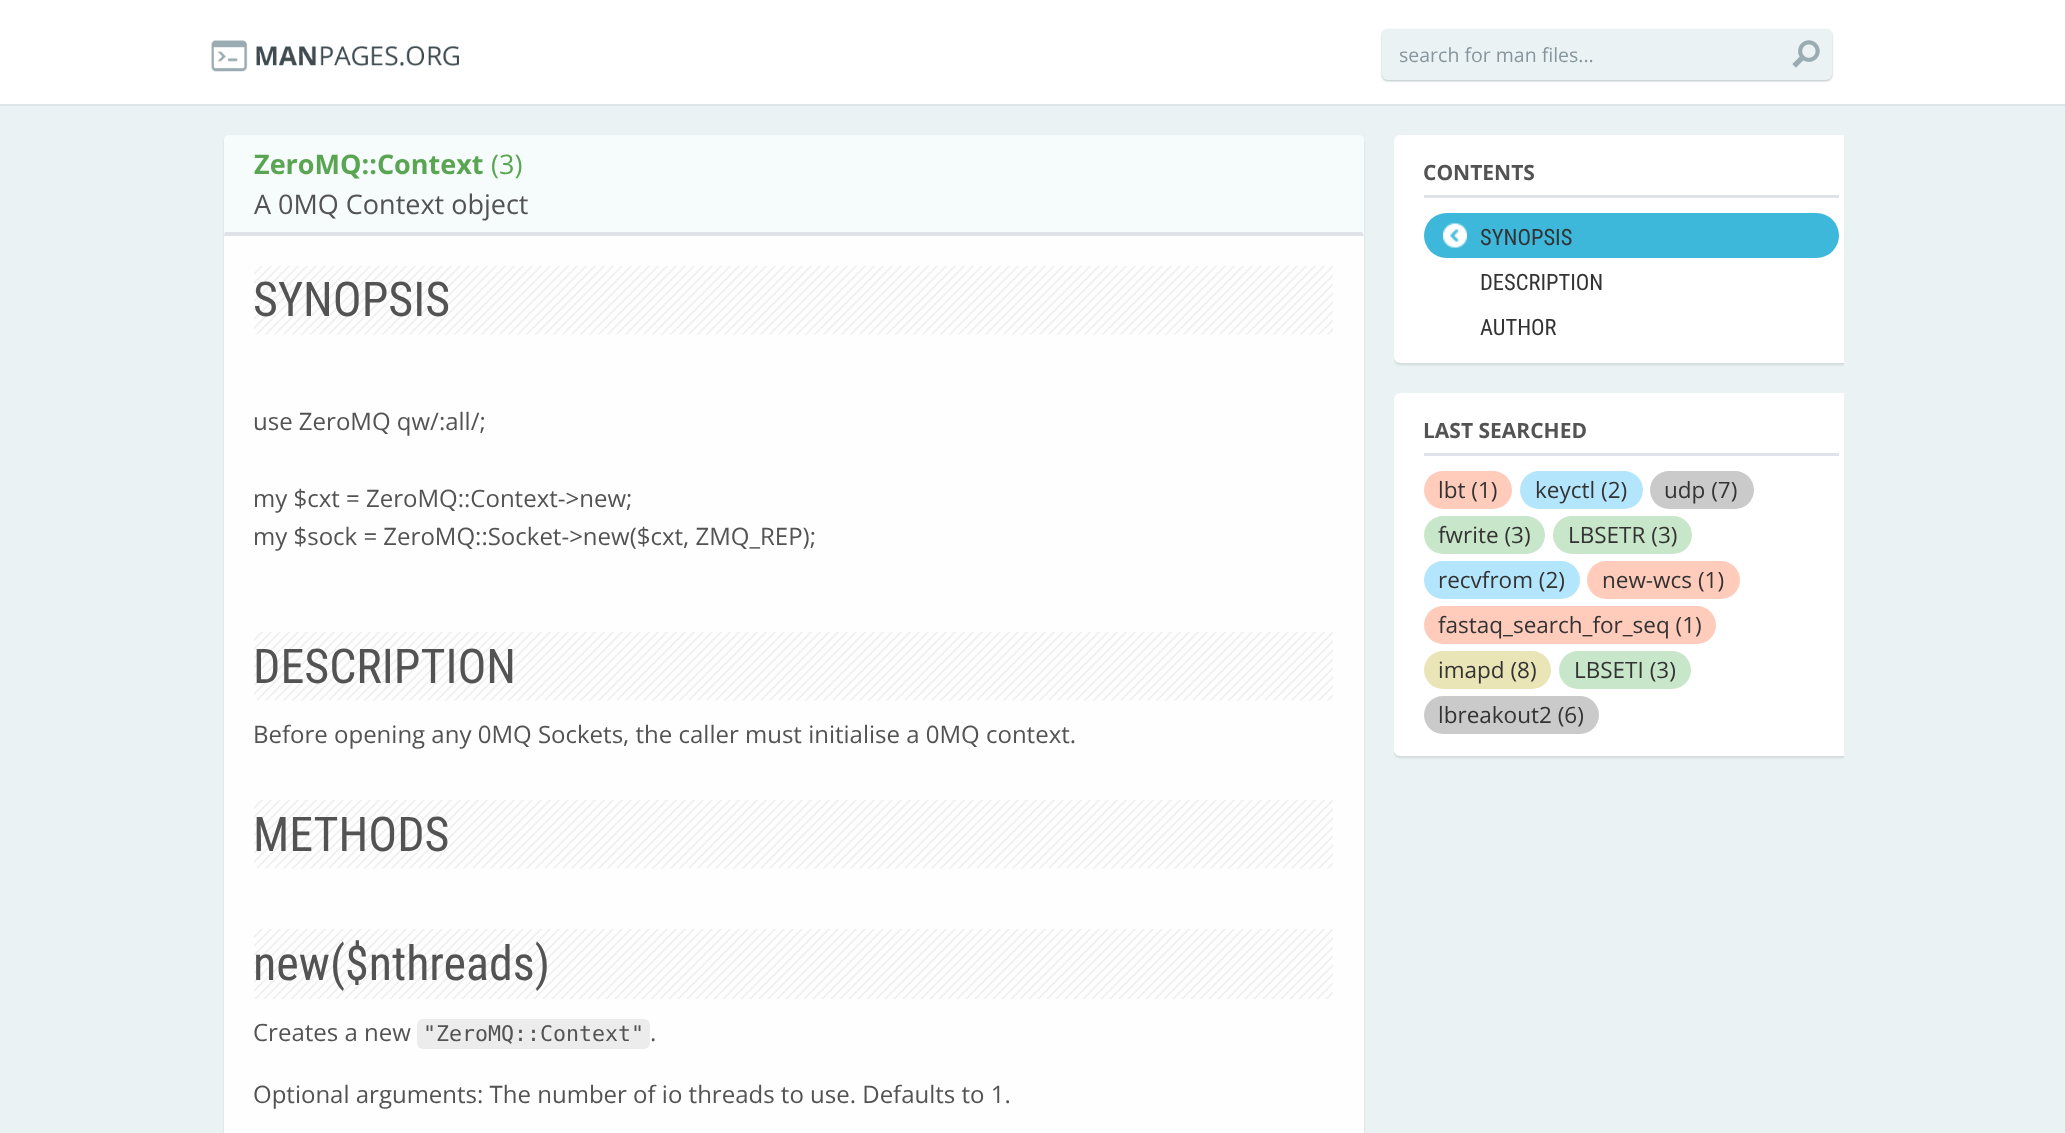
(async () => {
  const canvas = document.querySelector("canvas");
  canvas.width = 2065;
  canvas.height = 1133;
  const ctx = canvas.getContext("2d");
  ctx.miterLimit = 4;
  ctx.fontKerning = "normal";
  async function loadImage(src) {
    const img = new Image();
    img.src = src;
    await img.decode();
    return img;
  }
  let path;

  ctx.fillStyle = "#eaf2f4";
  ctx.fillRect(0, 0, 2065, 1133);
  ctx.fillStyle = "#ffffff";
  ctx.fillRect(0, 0, 2065, 104);
  ctx.fillStyle = "#dce5e7";
  ctx.fillRect(0, 104, 2065, 2);
  ctx.drawImage(await loadImage("img/1.png"), 211, 40, 248, 32);
  ctx.fillStyle = "rgba(6, 47, 55, 0.3)";
  ctx.filter = "blur(1px)";
  ctx.beginPath();
  ctx.roundRect(1382, 30, 450, 51, 6);
  ctx.fill();
  ctx.filter = "none";
  ctx.fillStyle = "#eaf2f4";
  ctx.beginPath();
  ctx.roundRect(1382, 29, 450, 51, 6);
  ctx.fill();
  ctx.drawImage(await loadImage("img/2.png"), 1792, 40, 28, 28);
  ctx.fillStyle = "rgba(0, 0, 0, 0.1)";
  ctx.filter = "blur(1px)";
  ctx.beginPath();
  ctx.roundRect(224, 137, 1140, 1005, 6);
  ctx.fill();
  ctx.filter = "none";
  ctx.fillStyle = "#fefefe";
  path = new Path2D("M230 135H1358C1361.5 135 1364 137.5 1364 141V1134H224V141C224 137.5 226.5 135 230 135Z");
  ctx.fill(path);
  ctx.fillStyle = "#f6fbfc";
  ctx.beginPath();
  ctx.roundRect(224, 135, 1140, 101, [5, 5, 0, 0]);
  ctx.fill();
  ctx.fillStyle = "#dfe3e9";
  path = new Path2D("M1364 236H224L225 232H1362Z");
  ctx.fill(path);
  ctx.drawImage(await loadImage("img/3.png"), 254, 266, 1079, 69);
  ctx.drawImage(await loadImage("img/3.png"), 254, 632, 1079, 69);
  ctx.drawImage(await loadImage("img/3.png"), 254, 800, 1079, 69);
  ctx.drawImage(await loadImage("img/4.png"), 254, 929, 1079, 70);
  ctx.fillStyle = "#ececec";
  ctx.beginPath();
  ctx.roundRect(417, 1019, 233, 30, 6);
  ctx.fill();
  ctx.save();
  ctx.beginPath();
  ctx.rect(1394, 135, 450, 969);
  ctx.clip();
  ctx.fillStyle = "rgba(0, 0, 0, 0.1)";
  ctx.filter = "blur(1px)";
  ctx.beginPath();
  ctx.roundRect(1394, 137, 475, 228, 6);
  ctx.fill();
  ctx.filter = "none";
  ctx.restore();
  ctx.fillStyle = "#ffffff";
  ctx.beginPath();
  ctx.roundRect(1394, 135, 450, 228, [6, 0, 0, 6]);
  ctx.fill();
  ctx.fillStyle = "#dfe3e9";
  ctx.fillRect(1424, 195, 415, 3);
  ctx.fillStyle = "#3db8db";
  ctx.beginPath();
  ctx.roundRect(1424, 213, 415, 45, 22.5);
  ctx.fill();
  ctx.drawImage(await loadImage("img/5.png"), 1443, 223, 24, 25);
  ctx.save();
  ctx.beginPath();
  ctx.rect(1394, 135, 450, 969);
  ctx.clip();
  ctx.fillStyle = "rgba(0, 0, 0, 0.1)";
  ctx.filter = "blur(1px)";
  ctx.beginPath();
  ctx.roundRect(1394, 395, 475, 363, 6);
  ctx.fill();
  ctx.filter = "none";
  ctx.restore();
  ctx.fillStyle = "#ffffff";
  ctx.beginPath();
  ctx.roundRect(1394, 393, 450, 363, [6, 0, 0, 6]);
  ctx.fill();
  ctx.fillStyle = "#dfe3e9";
  ctx.fillRect(1424, 453, 415, 3);
  ctx.fillStyle = "#ffccbc";
  ctx.beginPath();
  ctx.roundRect(1424, 471, 88, 38, 19);
  ctx.fill();
  ctx.fillStyle = "#b3e5fc";
  ctx.beginPath();
  ctx.roundRect(1520, 471, 123, 38, 19);
  ctx.fill();
  ctx.fillStyle = "#cacaca";
  ctx.beginPath();
  ctx.roundRect(1650, 471, 104, 38, 19);
  ctx.fill();
  ctx.fillStyle = "#c8e6c9";
  ctx.beginPath();
  ctx.roundRect(1424, 516, 121, 38, 19);
  ctx.fill();
  ctx.beginPath();
  ctx.roundRect(1553, 516, 139, 38, 19);
  ctx.fill();
  ctx.fillStyle = "#b3e5fc";
  ctx.beginPath();
  ctx.roundRect(1424, 561, 156, 38, 19);
  ctx.fill();
  ctx.fillStyle = "#ffccbc";
  ctx.beginPath();
  ctx.roundRect(1587, 561, 153, 38, 19);
  ctx.fill();
  ctx.beginPath();
  ctx.roundRect(1424, 606, 292, 38, 19);
  ctx.fill();
  ctx.fillStyle = "#eae5b7";
  ctx.beginPath();
  ctx.roundRect(1424, 651, 127, 38, 19);
  ctx.fill();
  ctx.fillStyle = "#c8e6c9";
  ctx.beginPath();
  ctx.roundRect(1559, 651, 132, 38, 19);
  ctx.fill();
  ctx.fillStyle = "#cacaca";
  ctx.beginPath();
  ctx.roundRect(1424, 696, 175, 38, 19);
  ctx.fill();
  ctx.save();
  ctx.beginPath();
  ctx.rect(1400, 42, 372, 27);
  ctx.clip();
  ctx.font = "19.5px Open Sans";
  ctx.fillStyle = "#86969d";
  ctx.fillText("search for man files...", 1399, 62);
  ctx.restore();
  ctx.font = "bold 27px Open Sans";
  ctx.fillStyle = "#59a552";
  ctx.fillText("ZeroMQ::Context", 254, 174);
  ctx.font = "27px Open Sans";
  ctx.fillText("(3)", 491, 174);
  ctx.fillStyle = "#535353";
  ctx.fillText("A 0MQ Context object", 254, 214);
  ctx.font = "48px Roboto Condensed";
  ctx.fillText("SYNOPSIS", 253, 316);
  ctx.font = "24px Open Sans";
  for (const [text, x, y] of [
    ["use ZeroMQ qw/:all/;", 253, 430],
    ["my $cxt = ZeroMQ::Context->new;", 253, 507],
    ["my $sock = ZeroMQ::Socket->new($cxt, ZMQ_REP);", 253, 545],
  ]) {
    ctx.fillText(text, x, y);
  }
  ctx.font = "48px Roboto Condensed";
  ctx.fillText("DESCRIPTION", 253, 683);
  ctx.font = "24px Open Sans";
  ctx.fillText("Before opening any 0MQ Sockets, the caller must initialise a 0MQ context.", 253, 743);
  ctx.font = "48px Roboto Condensed";
  ctx.fillText("METHODS", 253, 851);
  ctx.fillText("new($nthreads)", 253, 980);
  ctx.font = "24px Open Sans";
  ctx.fillText("Creates a new", 253, 1041);
  ctx.font = "21.6px DejaVu Sans Mono";
  ctx.fillText("\"ZeroMQ::Context\"", 423, 1041);
  ctx.font = "24px Open Sans";
  ctx.fillText(".", 650, 1041);
  ctx.fillText("Optional arguments: The number of io threads to use. Defaults to 1.", 253, 1103);
  ctx.font = "bold 21px Open Sans";
  ctx.fillText("CONTENTS", 1423, 180);
  ctx.font = "22.5px Roboto Condensed";
  ctx.fillStyle = "#333333";
  for (const [text, x, y] of [
    ["SYNOPSIS", 1480, 245],
    ["DESCRIPTION", 1480, 290],
    ["AUTHOR", 1480, 335],
  ]) {
    ctx.fillText(text, x, y);
  }
  ctx.font = "bold 21px Open Sans";
  ctx.fillStyle = "#535353";
  ctx.fillText("LAST SEARCHED", 1423, 438);
  ctx.font = "22.5px Open Sans";
  ctx.fillStyle = "#333333";
  for (const [text, x, y] of [
    ["lbt (1)", 1438, 498],
    ["keyctl (2)", 1535, 498],
    ["udp (7)", 1664, 498],
    ["fwrite (3)", 1438, 543],
    ["LBSETR (3)", 1568, 543],
    ["recvfrom (2)", 1438, 588],
    ["new-wcs (1)", 1602, 588],
    ["fastaq_search_for_seq (1)", 1438, 633],
    ["imapd (8)", 1438, 678],
    ["LBSETI (3)", 1574, 678],
    ["lbreakout2 (6)", 1438, 723],
  ]) {
    ctx.fillText(text, x, y);
  }
})();
